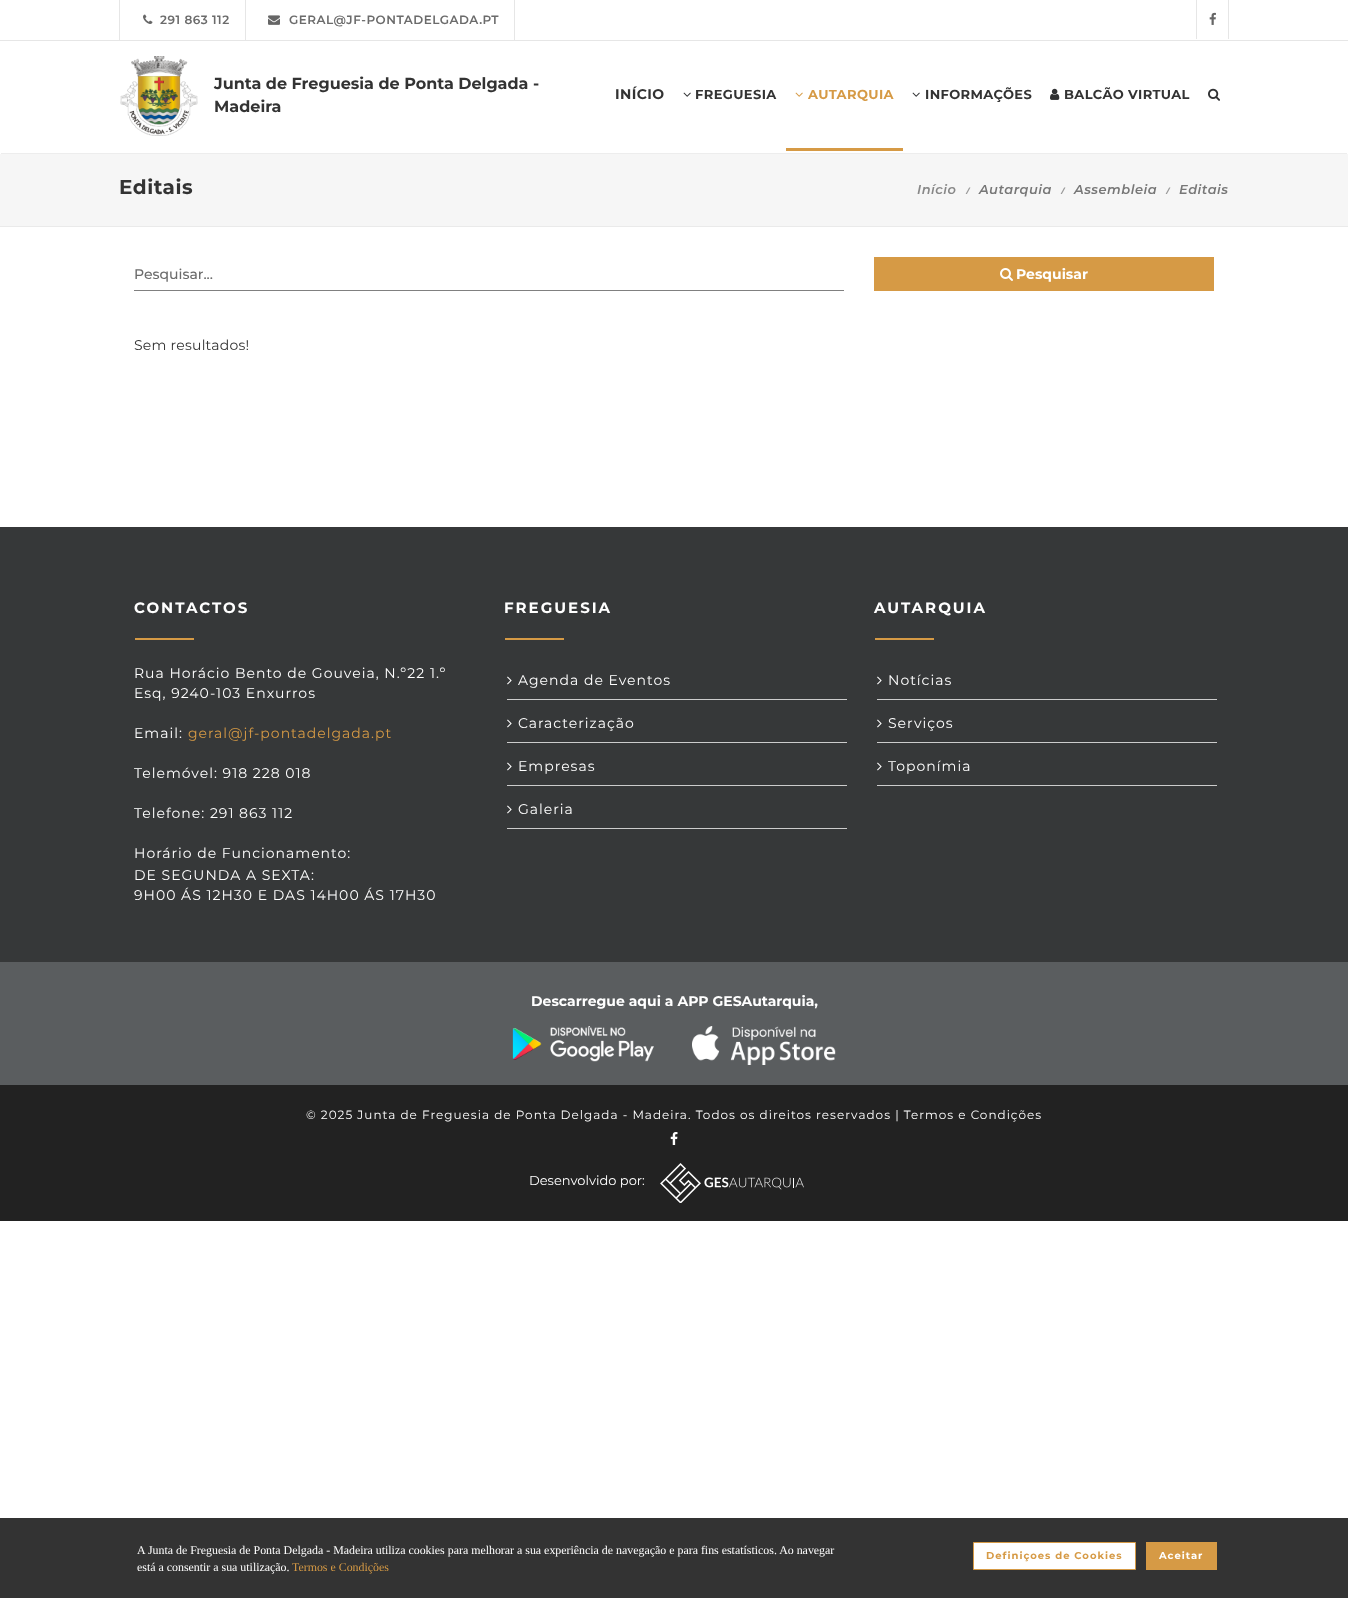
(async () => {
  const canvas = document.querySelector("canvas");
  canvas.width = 1348;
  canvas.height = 1598;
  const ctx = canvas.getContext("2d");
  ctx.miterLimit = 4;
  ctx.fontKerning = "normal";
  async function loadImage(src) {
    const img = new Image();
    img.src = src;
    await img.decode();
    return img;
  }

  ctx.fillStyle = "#ffffff";
  ctx.fillRect(0, 0, 1348, 1598);
  ctx.fillStyle = "#e6e6e6";
  ctx.fillRect(0, 40, 1348, 1);
  ctx.fillRect(119, 0, 1, 40);
  ctx.drawImage(await loadImage("img/1.png"), 143, 14, 10, 10);
  ctx.fillRect(514, 0, 1, 40);
  ctx.fillRect(245, 0, 1, 40);
  ctx.drawImage(await loadImage("img/2.png"), 268, 15, 12, 10);
  ctx.fillRect(1228, 0, 1, 39);
  ctx.fillRect(1196, 0, 1, 39);
  ctx.drawImage(await loadImage("img/3.png"), 1209, 12, 7, 13);
  ctx.fillStyle = "#ededed";
  ctx.fillRect(1, 153, 1346, 1);
  ctx.drawImage(await loadImage("img/4.png"), 120, 56, 78, 80);
  ctx.drawImage(await loadImage("img/5.png"), 683, 92, 8, 5);
  ctx.fillStyle = "#d69a45";
  ctx.fillRect(786, 148, 117, 3);
  ctx.drawImage(await loadImage("img/6.png"), 795, 92, 8, 5);
  ctx.drawImage(await loadImage("img/5.png"), 912, 92, 8, 5);
  ctx.drawImage(await loadImage("img/7.png"), 1050, 88, 10, 12);
  ctx.drawImage(await loadImage("img/8.png"), 1208, 88, 12, 13);
  for (const [x, y, w, h, color] of [
    [0, 154, 1348, 72, "#f6f6f6"],
    [0, 226, 1348, 1, "#eaeaea"],
    [134, 290, 710, 1, "#808080"],
    [874, 257, 340, 34, "#d69a45"],
  ]) {
    ctx.fillStyle = color;
    ctx.fillRect(x, y, w, h);
  }
  ctx.drawImage(await loadImage("img/9.png"), 1000, 268, 13, 13);
  for (const [x, y, w, h, color] of [
    [0, 527, 1348, 435, "#363839"],
    [135, 638, 59, 2, "#d69a45"],
    [505, 638, 59, 2, "#d69a45"],
    [507, 699, 340, 1, "#cccccc"],
  ]) {
    ctx.fillStyle = color;
    ctx.fillRect(x, y, w, h);
  }
  ctx.drawImage(await loadImage("img/10.png"), 507, 676, 5, 9);
  ctx.fillRect(507, 742, 340, 1);
  ctx.drawImage(await loadImage("img/10.png"), 507, 719, 5, 9);
  ctx.fillRect(507, 785, 340, 1);
  ctx.drawImage(await loadImage("img/10.png"), 507, 762, 5, 9);
  ctx.fillRect(507, 828, 340, 1);
  ctx.drawImage(await loadImage("img/10.png"), 507, 805, 5, 9);
  ctx.fillStyle = "#d69a45";
  ctx.fillRect(875, 638, 59, 2);
  ctx.fillStyle = "#cccccc";
  ctx.fillRect(877, 699, 340, 1);
  ctx.drawImage(await loadImage("img/10.png"), 877, 676, 5, 9);
  ctx.fillRect(877, 742, 340, 1);
  ctx.drawImage(await loadImage("img/10.png"), 877, 719, 5, 9);
  ctx.fillRect(877, 785, 340, 1);
  ctx.drawImage(await loadImage("img/10.png"), 877, 762, 5, 9);
  ctx.fillStyle = "#5a5d5f";
  ctx.fillRect(0, 962, 1348, 123);
  ctx.drawImage(await loadImage("img/11.png"), 512, 1026, 142, 36);
  ctx.drawImage(await loadImage("img/12.png"), 692, 1026, 144, 39);
  ctx.fillStyle = "#222222";
  ctx.fillRect(0, 1085, 1348, 136);
  ctx.drawImage(await loadImage("img/13.png"), 670, 1132, 8, 13);
  ctx.drawImage(await loadImage("img/14.png"), 660, 1163, 144, 40);
  ctx.fillStyle = "#333333";
  ctx.fillRect(0, 1518, 1348, 80);
  ctx.fillStyle = "#ffffff";
  ctx.beginPath();
  ctx.rect(973.5, 1542.5, 162, 27);
  ctx.fill();
  ctx.strokeStyle = "#d69a45";
  ctx.stroke();
  ctx.fillStyle = "#d69a45";
  ctx.fillRect(1146, 1542, 71, 28);
  ctx.letterSpacing = "0.5px";
  ctx.font = "600 12px Montserrat";
  ctx.fillStyle = "#6b6b6b";
  ctx.fillText("291 863 112", 160, 24);
  ctx.fillText("GERAL@JF-PONTADELGADA.PT", 289, 24);
  ctx.letterSpacing = "0px";
  ctx.font = "bold 16px Montserrat";
  ctx.fillStyle = "#333333";
  ctx.fillText("Junta de Freguesia de Ponta Delgada -", 214, 89);
  ctx.fillText("Madeira", 214, 112);
  ctx.letterSpacing = "0.4px";
  ctx.font = "bold 14px Montserrat";
  ctx.fillText("INÍCIO", 615, 99);
  ctx.font = "bold 13px Montserrat";
  ctx.fillText("FREGUESIA", 695, 99);
  ctx.fillStyle = "#d69a45";
  ctx.fillText("AUTARQUIA", 808, 99);
  ctx.fillStyle = "#333333";
  ctx.fillText("INFORMAÇÕES", 925, 99);
  ctx.fillText("BALCÃO VIRTUAL", 1064, 99);
  ctx.letterSpacing = "0.5px";
  ctx.font = "bold 20px Montserrat";
  ctx.fillText("Editais", 119, 194);
  ctx.font = "italic 600 13px Montserrat";
  ctx.fillStyle = "#888888";
  ctx.fillText("Início", 917, 194);
  ctx.font = "italic bold 9px Open Sans";
  ctx.fillStyle = "#999999";
  ctx.fillText("/", 966, 194);
  ctx.font = "italic 600 13px Montserrat";
  ctx.fillStyle = "#777777";
  ctx.fillText("Autarquia", 979, 194);
  ctx.font = "italic bold 9px Open Sans";
  ctx.fillStyle = "#999999";
  ctx.fillText("/", 1061, 194);
  ctx.font = "italic 600 13px Montserrat";
  ctx.fillStyle = "#777777";
  ctx.fillText("Assembleia", 1074, 194);
  ctx.font = "italic bold 9px Open Sans";
  ctx.fillStyle = "#999999";
  ctx.fillText("/", 1166, 194);
  ctx.font = "italic 600 13px Montserrat";
  ctx.fillStyle = "#777777";
  ctx.fillText("Editais", 1179, 194);
  ctx.letterSpacing = "0px";
  ctx.font = "500 14px Montserrat";
  ctx.fillStyle = "#6b6b6b";
  ctx.fillText("Pesquisar...", 134, 279);
  ctx.font = "bold 14px Montserrat";
  ctx.fillStyle = "#ffffff";
  ctx.fillText("Pesquisar", 1016, 279);
  ctx.letterSpacing = "0.25px";
  ctx.font = "14px Montserrat";
  ctx.fillStyle = "#333333";
  ctx.fillText("Sem resultados!", 134, 350);
  ctx.letterSpacing = "2px";
  ctx.font = "bold 15px Montserrat";
  ctx.fillStyle = "#ffffff";
  ctx.fillText("CONTACTOS", 134, 613);
  ctx.letterSpacing = "1px";
  ctx.font = "14px Montserrat";
  for (const [text, x, y] of [
    ["Rua Horácio Bento de Gouveia, N.º22 1.º", 134, 678],
    ["Esq, 9240-103 Enxurros", 134, 698],
    ["Email:", 134, 738],
  ]) {
    ctx.fillText(text, x, y);
  }
  ctx.fillStyle = "#d69a45";
  ctx.fillText("geral@jf-pontadelgada.pt", 188, 738);
  ctx.fillStyle = "#ffffff";
  for (const [text, x, y] of [
    ["Telemóvel: 918 228 018", 134, 778],
    ["Telefone: 291 863 112", 134, 818],
    ["Horário de Funcionamento:", 134, 858],
    ["DE SEGUNDA A SEXTA:", 134, 880],
    ["9H00 ÁS 12H30 E DAS 14H00 ÁS 17H30", 134, 900],
  ]) {
    ctx.fillText(text, x, y);
  }
  ctx.letterSpacing = "2px";
  ctx.font = "bold 15px Montserrat";
  ctx.fillText("FREGUESIA", 504, 613);
  ctx.letterSpacing = "1px";
  ctx.font = "14px Montserrat";
  for (const [text, x, y] of [
    ["Agenda de Eventos", 518, 685],
    ["Caracterização", 518, 728],
    ["Empresas", 518, 771],
    ["Galeria", 518, 814],
  ]) {
    ctx.fillText(text, x, y);
  }
  ctx.letterSpacing = "2px";
  ctx.font = "bold 15px Montserrat";
  ctx.fillText("AUTARQUIA", 874, 613);
  ctx.letterSpacing = "1px";
  ctx.font = "14px Montserrat";
  for (const [text, x, y] of [
    ["Notícias", 888, 685],
    ["Serviços", 888, 728],
    ["Toponímia", 888, 771],
  ]) {
    ctx.fillText(text, x, y);
  }
  ctx.letterSpacing = "0px";
  ctx.font = "bold 14px Montserrat";
  ctx.fillText("Descarregue aqui a APP GESAutarquia,", 531, 1006);
  ctx.letterSpacing = "1px";
  ctx.font = "12px Montserrat";
  ctx.fillText("© 2025 Junta de Freguesia de Ponta Delgada - Madeira. Todos os direitos reservados | Termos e Condições", 306, 1119);
  ctx.letterSpacing = "0px";
  ctx.font = "13px Montserrat";
  ctx.fillText("Desenvolvido por:", 529, 1185);
  ctx.font = "11.9px Liberation Serif";
  ctx.fillText("A Junta de Freguesia de Ponta Delgada - Madeira utiliza cookies para melhorar a sua experiência de navegação e para fins estatísticos. Ao navegar", 137, 1554);
  ctx.fillText("está a consentir a sua utilização.", 137, 1571);
  ctx.fillStyle = "#d69a45";
  ctx.fillText("Termos e Condições", 292, 1571);
  ctx.letterSpacing = "1px";
  ctx.font = "bold 10px Montserrat";
  ctx.fillText("Definiçoes de Cookies", 986, 1559);
  ctx.fillStyle = "#ffffff";
  ctx.fillText("Aceitar", 1159, 1559);
})();
